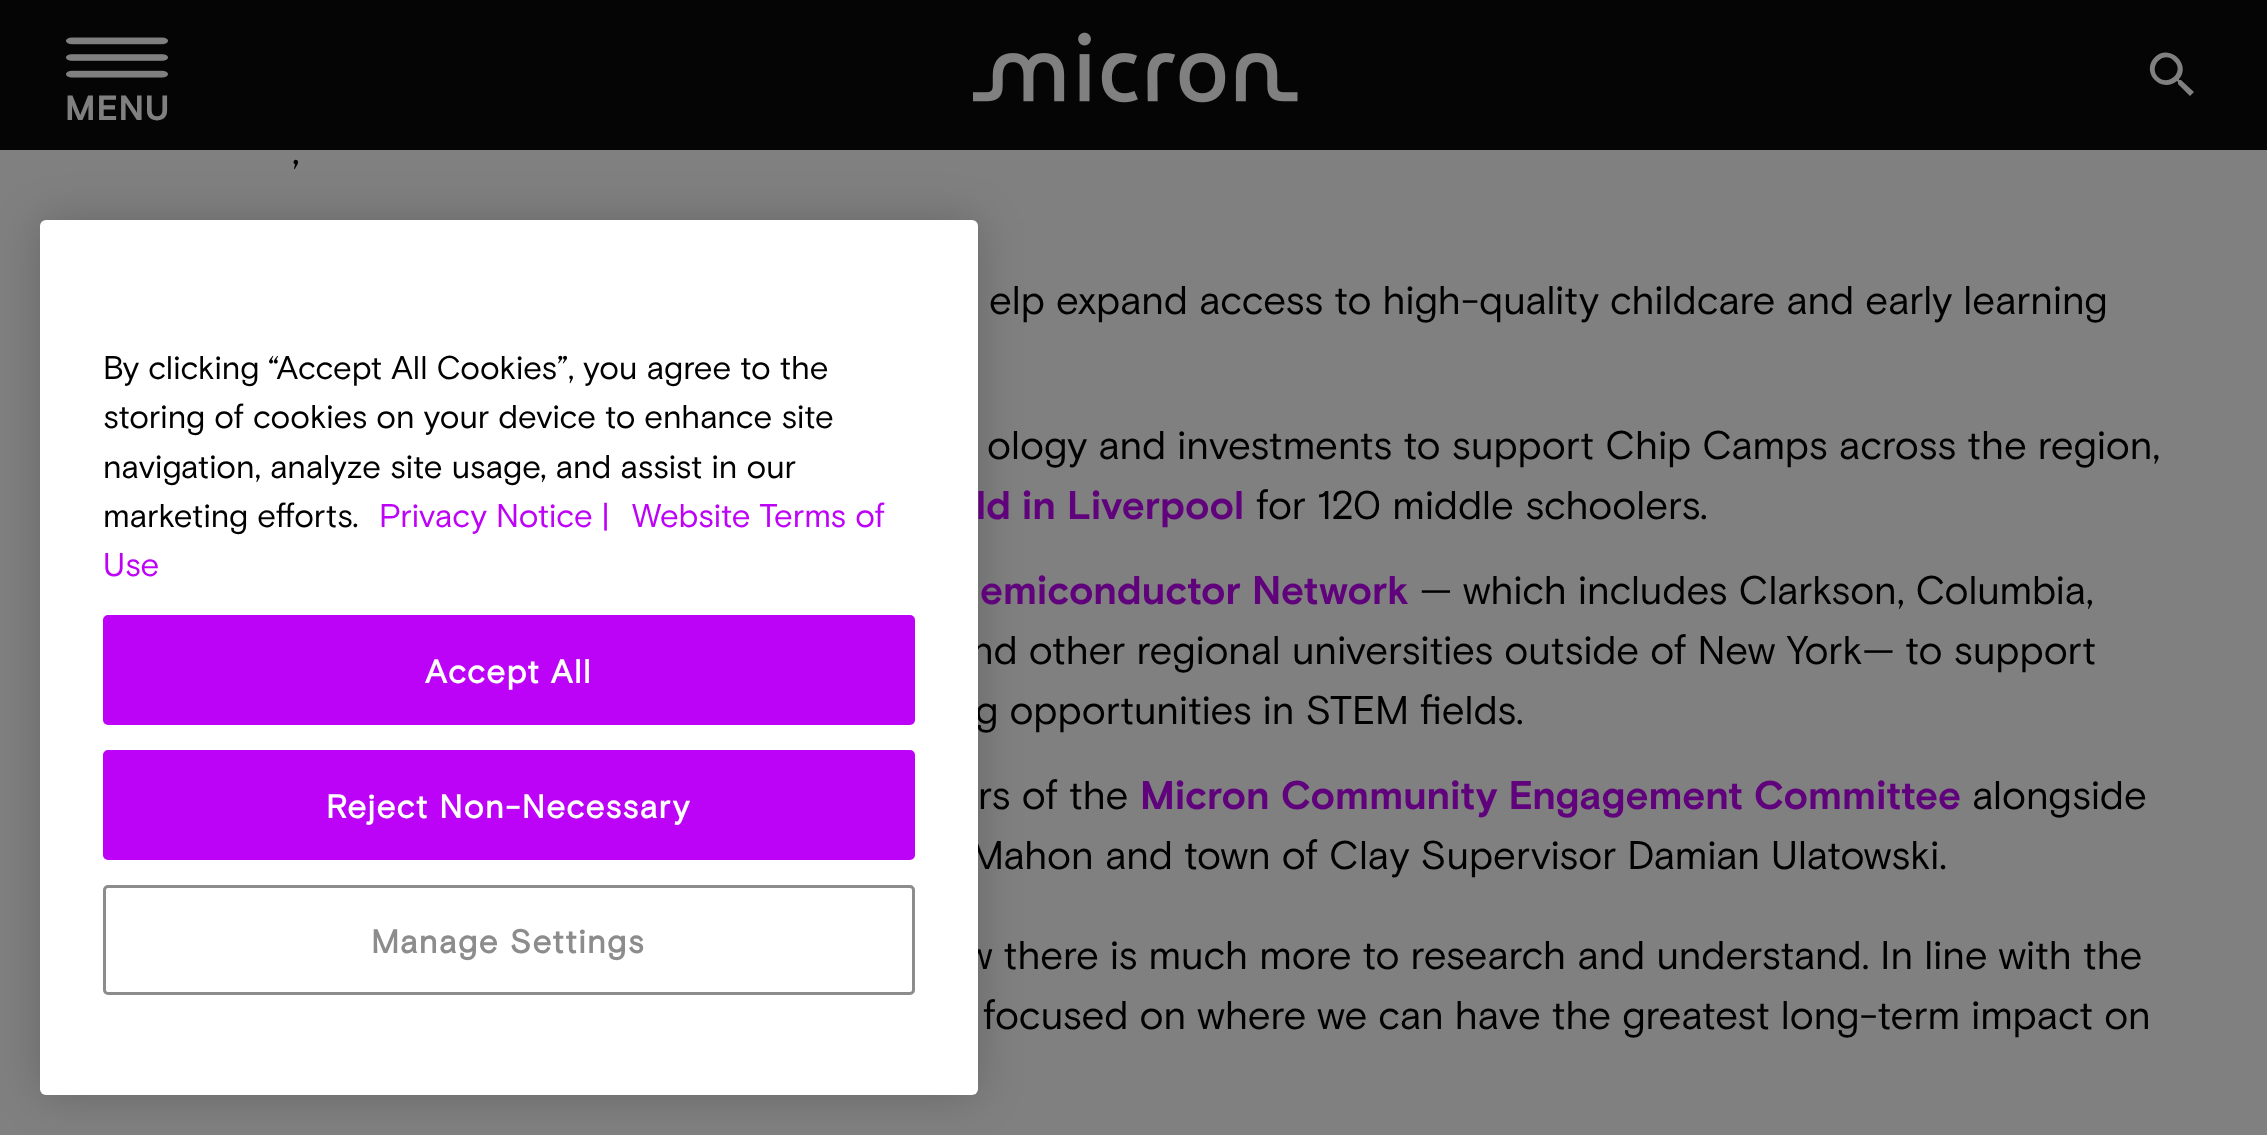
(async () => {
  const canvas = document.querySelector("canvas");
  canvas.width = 2267;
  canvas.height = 1135;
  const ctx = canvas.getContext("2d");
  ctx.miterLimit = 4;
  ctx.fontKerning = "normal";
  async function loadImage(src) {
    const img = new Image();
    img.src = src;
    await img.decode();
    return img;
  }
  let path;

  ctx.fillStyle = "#808080";
  ctx.fillRect(0, 0, 2267, 1135);
  ctx.fillStyle = "#050505";
  ctx.fillRect(0, 0, 2267, 150);
  ctx.drawImage(await loadImage("img/1.png"), 973, 32, 325, 71);
  ctx.fillStyle = "#808080";
  path = new Path2D("M2158 77C2169 87 2185 71 2174 61C2164 50 2148 66 2158 77ZM2181 80L2194 92L2190 96L2178 84V82L2177 81C2161 94 2140 72 2155 57C2169 43 2192 64 2179 79V80Z");
  ctx.fill(path);
  ctx.drawImage(await loadImage("img/2.png"), 66, 37, 102, 41);
  ctx.fillStyle = "rgba(0, 0, 0, 0.2)";
  ctx.filter = "blur(22.5px)";
  ctx.beginPath();
  ctx.roundRect(40, 220, 938, 875, 6);
  ctx.fill();
  ctx.filter = "none";
  ctx.letterSpacing = "1px";
  ctx.font = "bold 35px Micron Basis";
  ctx.fillStyle = "#808080";
  ctx.fillText("MENU", 65, 120);
  ctx.letterSpacing = "0px";
  ctx.font = "40px Micron Basis";
  ctx.fillStyle = "#000000";
  for (const [text, x, y] of [
    [",", 292, 164],
    ["elp expand access to high-quality childcare and early learning", 989, 314],
    ["ology and investments to support Chip Camps across the region,", 987, 459],
  ]) {
    ctx.fillText(text, x, y);
  }
  ctx.font = "bold 40px Micron Basis";
  ctx.fillStyle = "#5f027c";
  ctx.fillText("ld in Liverpool", 976, 519);
  ctx.font = "40px Micron Basis";
  ctx.fillStyle = "#000000";
  ctx.fillText("for 120 middle schoolers.", 1256, 519);
  ctx.font = "bold 40px Micron Basis";
  ctx.fillStyle = "#5f027c";
  ctx.fillText("emiconductor Network", 980, 604);
  ctx.font = "40px Micron Basis";
  ctx.fillStyle = "#000000";
  for (const [text, x, y] of [
    ["— which includes Clarkson, Columbia,", 1420, 604],
    ["nd other regional universities outside of New York— to support", 971, 664],
    ["g opportunities in STEM fields.", 975, 724],
    ["rs of the", 978, 809],
  ]) {
    ctx.fillText(text, x, y);
  }
  ctx.font = "bold 40px Micron Basis";
  ctx.fillStyle = "#5f027c";
  ctx.fillText("Micron Community Engagement Committee", 1140, 809);
  ctx.font = "40px Micron Basis";
  ctx.fillStyle = "#000000";
  for (const [text, x, y] of [
    ["alongside", 1972, 809],
    ["Mahon and town of Clay Supervisor Damian Ulatowski.", 970, 869],
    ["w there is much more to research and understand. In line with the", 965, 969],
    ["focused on where we can have the greatest long-term impact on", 983, 1029],
  ]) {
    ctx.fillText(text, x, y);
  }
  ctx.fillStyle = "#ffffff";
  ctx.beginPath();
  ctx.roundRect(40, 220, 938, 875, 6);
  ctx.fill();
  ctx.font = "32.8px Micron Basis";
  ctx.fillStyle = "#000000";
  for (const [text, x, y] of [
    ["By clicking “Accept All Cookies”, you agree to the", 103, 379],
    ["storing of cookies on your device to enhance site", 103, 428],
    ["navigation, analyze site usage, and assist in our", 103, 478],
    ["marketing efforts.", 103, 527],
  ]) {
    ctx.fillText(text, x, y);
  }
  ctx.fillStyle = "#bd03f7";
  for (const [text, x, y] of [
    ["Privacy Notice |", 379, 527],
    ["Website Terms of", 632, 527],
    ["Use", 103, 576],
  ]) {
    ctx.fillText(text, x, y);
  }
  ctx.beginPath();
  ctx.roundRect(104.5, 616.5, 809, 107, 3.5);
  ctx.fill();
  ctx.strokeStyle = "#bd03f7";
  ctx.lineWidth = 3;
  ctx.stroke();
  ctx.letterSpacing = "1.6px";
  ctx.font = "bold 32.8px 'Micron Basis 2'";
  ctx.fillStyle = "#ffffff";
  ctx.fillText("Accept All", 425, 683);
  ctx.fillStyle = "#bd03f7";
  ctx.beginPath();
  ctx.roundRect(104.5, 751.5, 809, 107, 3.5);
  ctx.fill();
  ctx.stroke();
  ctx.fillStyle = "#ffffff";
  ctx.fillText("Reject Non-Necessary", 326, 818);
  ctx.beginPath();
  ctx.roundRect(104.5, 886.5, 809, 107, 3.5);
  ctx.strokeStyle = "#8c8c8c";
  ctx.stroke();
  ctx.fillStyle = "#8c8c8c";
  ctx.fillText("Manage Settings", 371, 953);
})();
